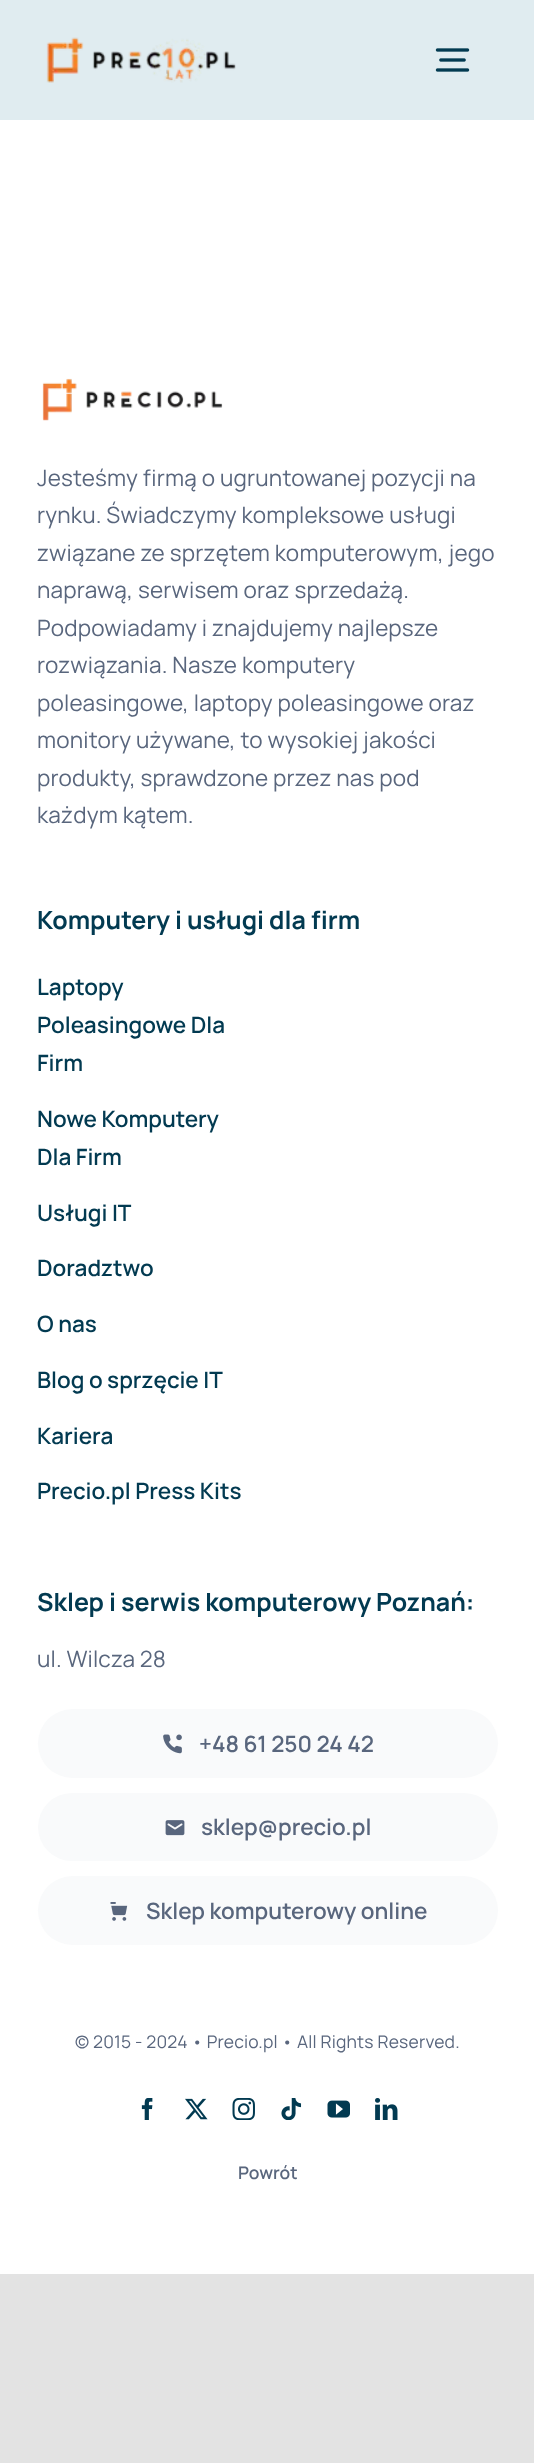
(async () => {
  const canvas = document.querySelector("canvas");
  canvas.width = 534;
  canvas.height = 2463;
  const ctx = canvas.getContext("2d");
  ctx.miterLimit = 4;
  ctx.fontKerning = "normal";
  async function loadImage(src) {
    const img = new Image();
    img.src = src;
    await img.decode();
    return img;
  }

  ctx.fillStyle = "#e3e3e3";
  ctx.fillRect(0, 0, 534, 2463);
  ctx.fillStyle = "#ffffff";
  ctx.fillRect(0, 120, 534, 2154);
  ctx.fillStyle = "#e0ecf0";
  ctx.fillRect(0, 0, 534, 120);
  ctx.drawImage(await loadImage("img/1.png"), 46, 37, 190, 46);
  ctx.drawImage(await loadImage("img/2.png"), 435, 48, 35, 24);
  ctx.drawImage(await loadImage("img/3.png"), 42, 378, 181, 43);
  ctx.fillStyle = "#f9fafb";
  ctx.beginPath();
  ctx.roundRect(38, 1709, 460, 69, 34.5);
  ctx.fill();
  ctx.drawImage(await loadImage("img/4.png"), 163, 1734, 19, 20);
  ctx.beginPath();
  ctx.roundRect(38, 1793, 460, 68, 34);
  ctx.fill();
  ctx.drawImage(await loadImage("img/5.png"), 165, 1820, 20, 16);
  ctx.beginPath();
  ctx.roundRect(38, 1876, 460, 69, 34.5);
  ctx.fill();
  ctx.drawImage(await loadImage("img/6.png"), 110, 1902, 18, 19);
  ctx.drawImage(await loadImage("img/7.png"), 141, 2098, 12, 22);
  ctx.drawImage(await loadImage("img/8.png"), 185, 2098, 23, 22);
  ctx.drawImage(await loadImage("img/9.png"), 232, 2098, 23, 22);
  ctx.drawImage(await loadImage("img/10.png"), 281, 2098, 21, 22);
  ctx.drawImage(await loadImage("img/11.png"), 327, 2100, 23, 18);
  ctx.drawImage(await loadImage("img/12.png"), 375, 2098, 23, 22);
  ctx.letterSpacing = "0.2px";
  ctx.font = "22.5px Manrope";
  ctx.fillStyle = "#59667d";
  for (const [text, x, y] of [
    ["Jesteśmy firmą o ugruntowanej pozycji na", 37, 486],
    ["rynku. Świadczymy kompleksowe usługi", 37, 523],
    ["związane ze sprzętem komputerowym, jego", 37, 561],
    ["naprawą, serwisem oraz sprzedażą.", 37, 598],
    ["Podpowiadamy i znajdujemy najlepsze", 37, 636],
    ["rozwiązania. Nasze komputery", 37, 673],
    ["poleasingowe, laptopy poleasingowe oraz", 37, 711],
    ["monitory używane, to wysokiej jakości", 37, 748],
    ["produkty, sprawdzone przez nas pod", 37, 786],
    ["każdym kątem.", 37, 823],
  ]) {
    ctx.fillText(text, x, y);
  }
  ctx.letterSpacing = "0px";
  ctx.font = "bold 25px Manrope";
  ctx.fillStyle = "#023a51";
  ctx.fillText("Komputery i usługi dla firm", 37, 929);
  ctx.font = "600 22.5px Manrope";
  for (const [text, x, y] of [
    ["Laptopy", 37, 995],
    ["Poleasingowe Dla", 37, 1033],
    ["Firm", 37, 1071],
    ["Nowe Komputery", 37, 1127],
    ["Dla Firm", 37, 1165],
    ["Usługi IT", 37, 1221],
    ["Doradztwo", 37, 1276],
    ["O nas", 37, 1332],
    ["Blog o sprzęcie IT", 37, 1388],
    ["Kariera", 37, 1444],
    ["Precio.pl Press Kits", 37, 1499],
  ]) {
    ctx.fillText(text, x, y);
  }
  ctx.font = "bold 25px Manrope";
  ctx.fillText("Sklep i serwis komputerowy Poznań:", 37, 1611);
  ctx.letterSpacing = "0.2px";
  ctx.font = "22.5px Manrope";
  ctx.fillStyle = "#59667d";
  ctx.fillText("ul. Wilcza 28", 37, 1667);
  ctx.letterSpacing = "0px";
  ctx.font = "600 22.5px Manrope";
  for (const [text, x, y] of [
    ["+48 61 250 24 42", 199, 1752],
    ["sklep@precio.pl", 201, 1835],
    ["Sklep komputerowy online", 146, 1919],
  ]) {
    ctx.fillText(text, x, y);
  }
  ctx.letterSpacing = "0.2px";
  ctx.font = "17.5px Manrope";
  ctx.fillText("© 2015 - 2024 • Precio.pl • All Rights Reserved.", 75, 2048);
  ctx.letterSpacing = "0px";
  ctx.font = "600 17.5px Manrope";
  ctx.fillText("Powrót", 238, 2179);
})();
